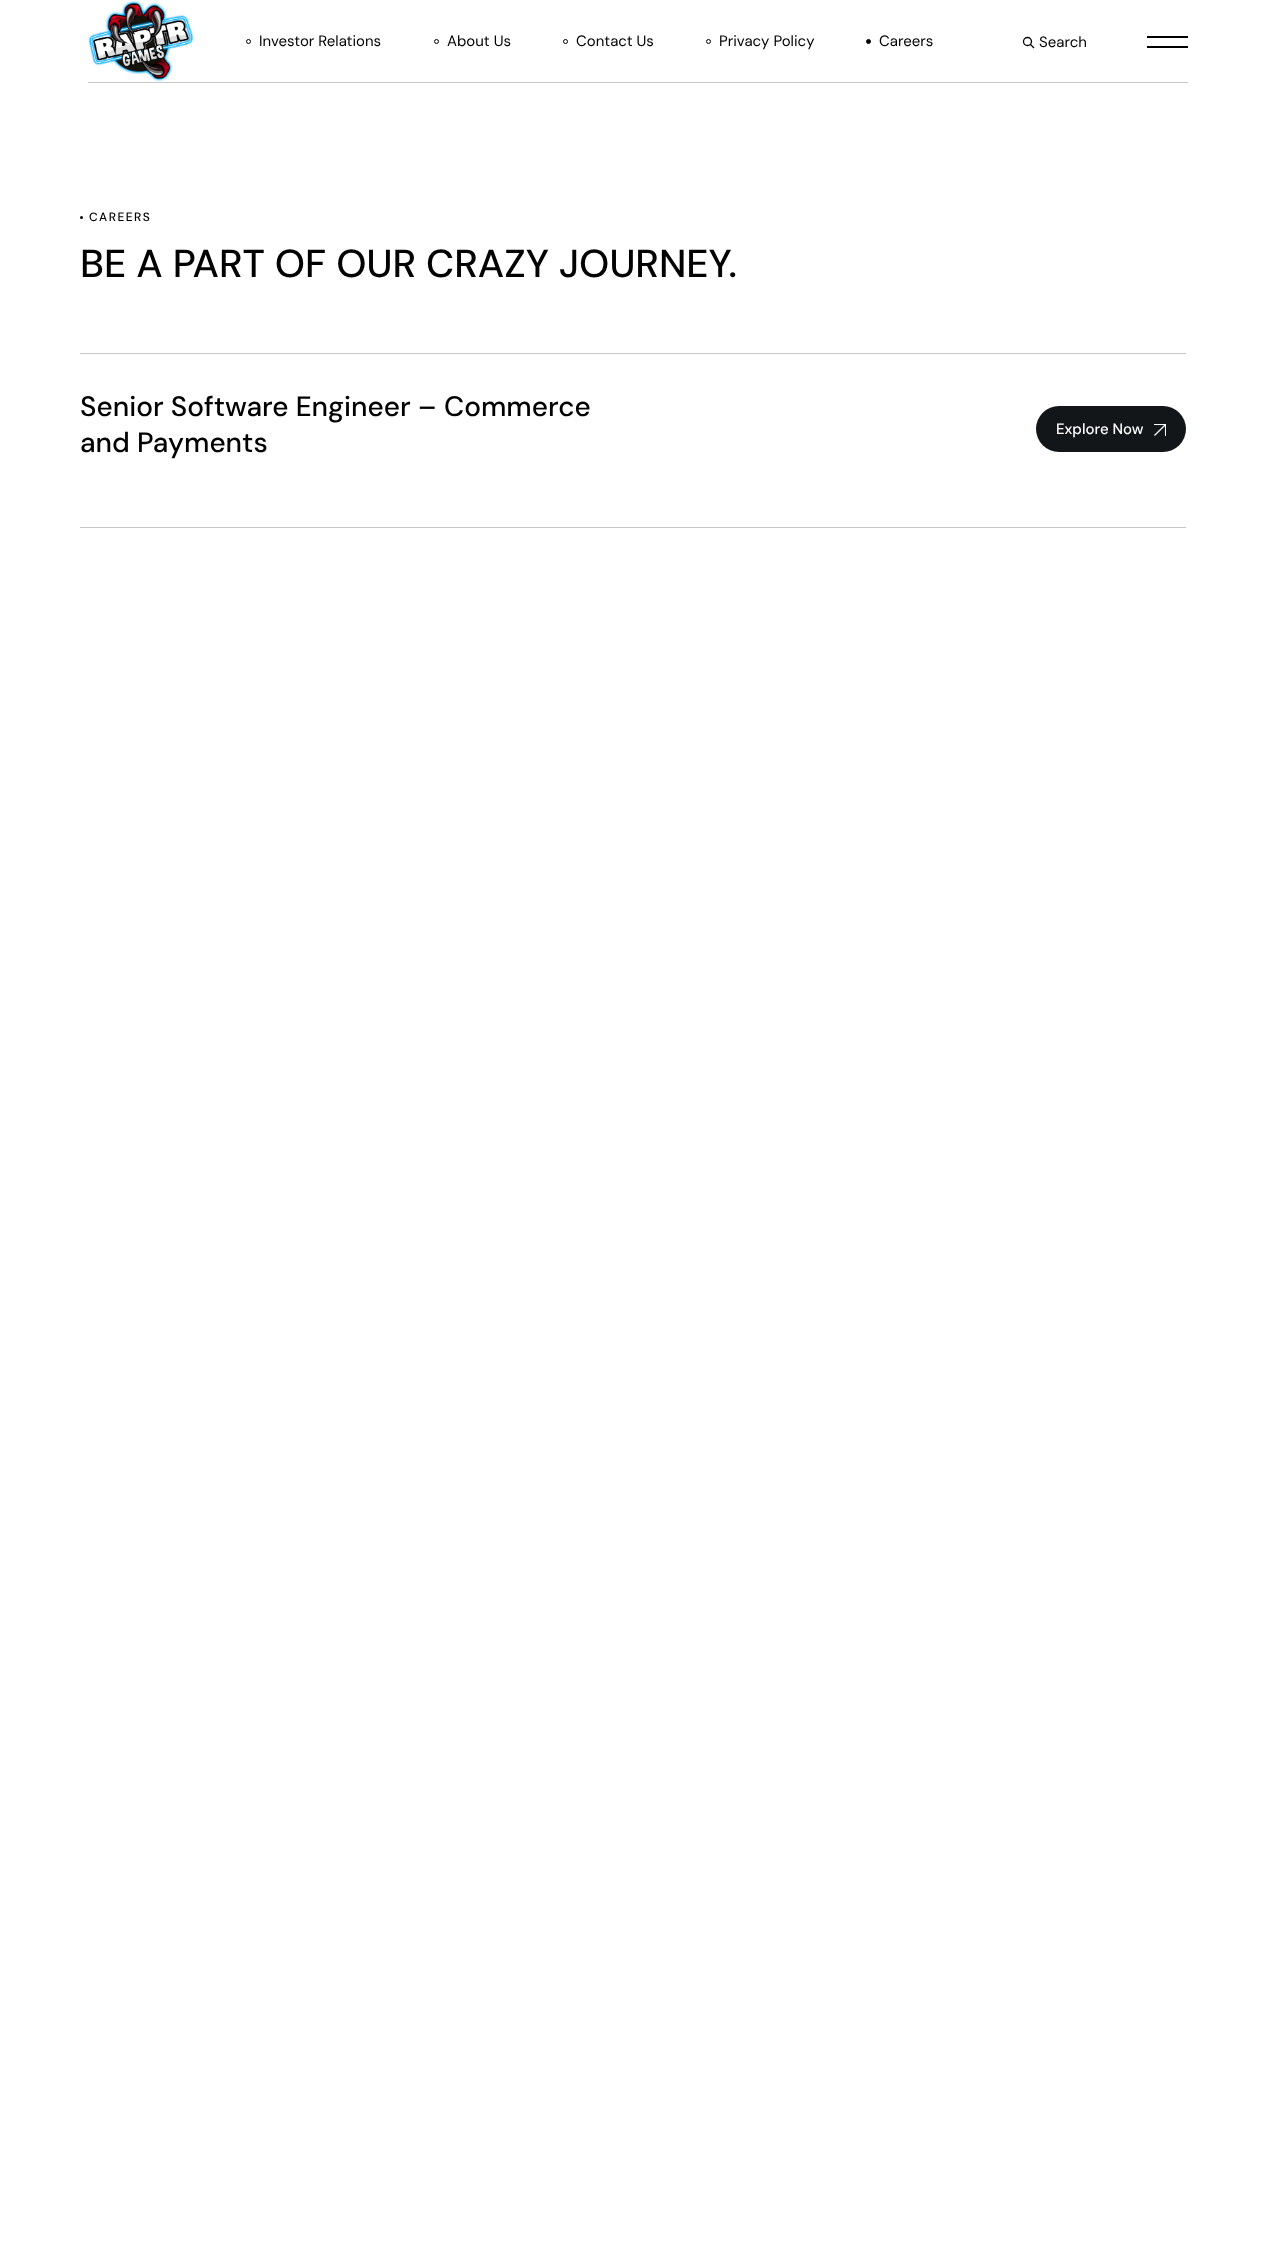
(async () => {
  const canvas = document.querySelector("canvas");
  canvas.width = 1266;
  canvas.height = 2245;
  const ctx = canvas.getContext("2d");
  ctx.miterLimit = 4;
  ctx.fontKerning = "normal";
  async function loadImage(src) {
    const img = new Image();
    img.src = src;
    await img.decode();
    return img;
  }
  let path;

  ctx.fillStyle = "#ffffff";
  ctx.fillRect(0, 0, 1266, 2245);
  ctx.fillStyle = "#c7c7c7";
  ctx.fillRect(88, 82, 1100, 1);
  ctx.drawImage(await loadImage("img/1.png"), 88, 0, 106, 82);
  ctx.beginPath();
  ctx.arc(248.5, 41.5, 2, 0, Math.PI * 2);
  ctx.strokeStyle = "#000000";
  ctx.stroke();
  ctx.beginPath();
  ctx.arc(436.5, 41.5, 2, 0, Math.PI * 2);
  ctx.stroke();
  ctx.beginPath();
  ctx.arc(565.5, 41.5, 2, 0, Math.PI * 2);
  ctx.stroke();
  ctx.beginPath();
  ctx.arc(708.5, 41.5, 2, 0, Math.PI * 2);
  ctx.stroke();
  ctx.fillStyle = "#000000";
  ctx.beginPath();
  ctx.arc(868.5, 41.5, 2, 0, Math.PI * 2);
  ctx.fill();
  ctx.stroke();
  ctx.beginPath();
  ctx.arc(1027.5, 41.5, 4, 0, Math.PI * 2);
  ctx.lineWidth = 1.3;
  ctx.stroke();
  path = new Path2D("M1030 44L1034 48");
  ctx.stroke(path);
  ctx.fillRect(1147, 36, 41, 2);
  ctx.fillRect(1147, 46, 41, 2);
  ctx.beginPath();
  ctx.arc(81.5, 217.5, 1.5, 0, Math.PI * 2);
  ctx.fill();
  ctx.fillStyle = "#c7c7c7";
  ctx.fillRect(80, 353, 1106, 1);
  ctx.fillRect(80, 527, 1106, 1);
  ctx.fillStyle = "#131619";
  ctx.beginPath();
  ctx.roundRect(1036, 406, 150, 46, 23);
  ctx.fill();
  ctx.drawImage(await loadImage("img/2.png"), 1154, 424, 12, 12);
  ctx.font = "15px DM Sans";
  ctx.fillStyle = "#000000";
  for (const [text, x, y] of [
    ["Investor Relations", 259, 46],
    ["About Us", 447, 46],
    ["Contact Us", 576, 46],
    ["Privacy Policy", 719, 46],
    ["Careers", 879, 46],
    ["Search", 1039, 47],
  ]) {
    ctx.fillText(text, x, y);
  }
  ctx.letterSpacing = "1.5px";
  ctx.font = "500 12px DM Sans";
  ctx.fillText("CAREERS", 89, 221);
  ctx.letterSpacing = "0px";
  ctx.font = "500 39px DM Sans";
  ctx.fillText("BE A PART OF OUR CRAZY JOURNEY.", 80, 277);
  ctx.font = "500 28px DM Sans";
  ctx.fillText("Senior Software Engineer – Commerce", 80, 416);
  ctx.fillText("and Payments", 80, 452);
  ctx.font = "500 15px DM Sans";
  ctx.fillStyle = "#ffffff";
  ctx.fillText("Explore Now", 1056, 434);
})();
